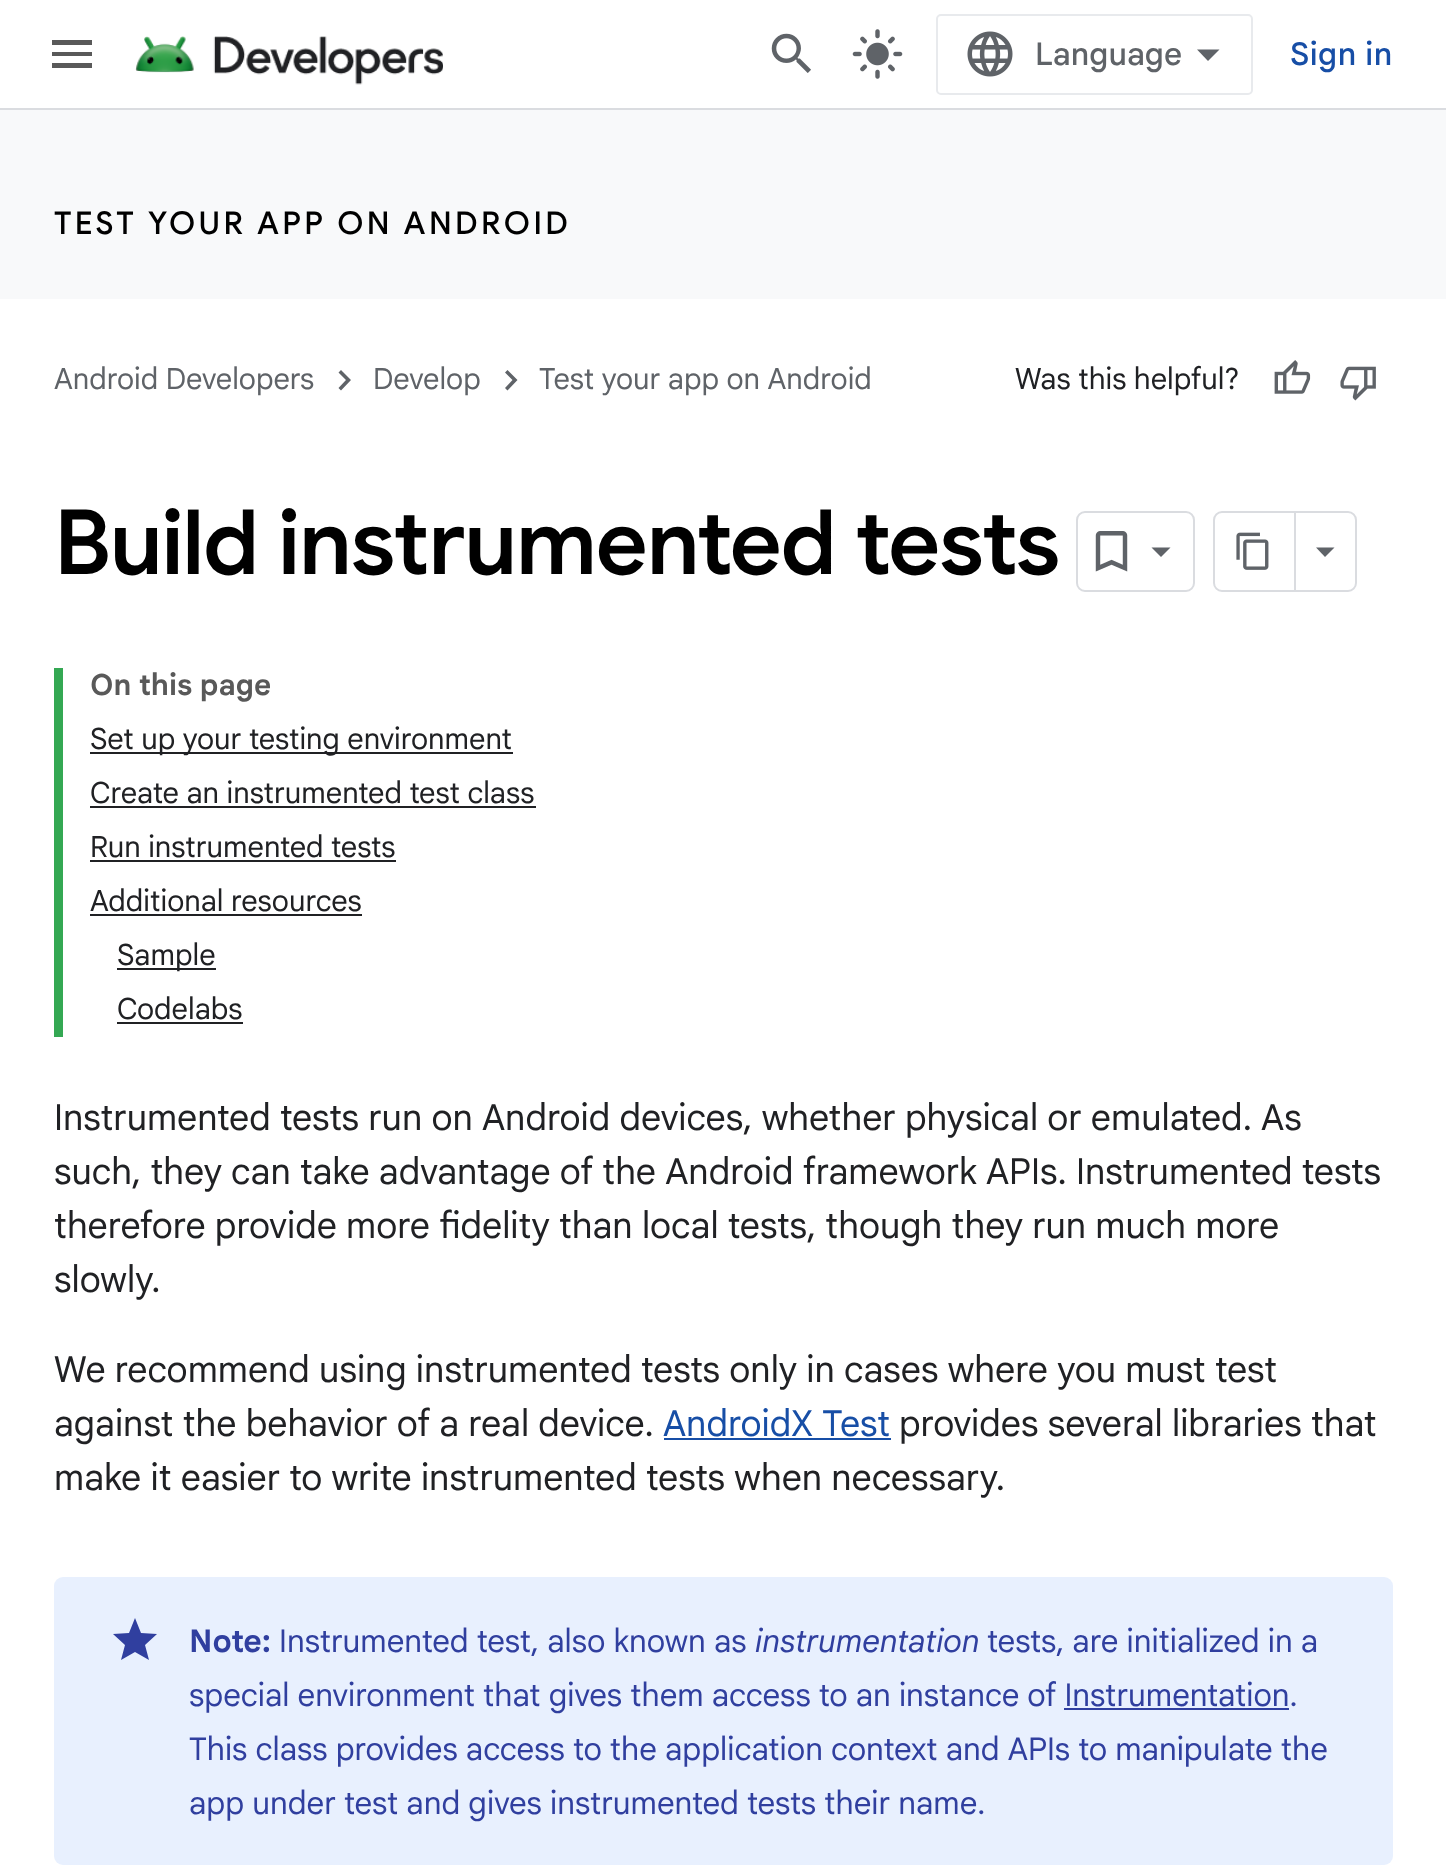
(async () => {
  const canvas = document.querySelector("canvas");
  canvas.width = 1446;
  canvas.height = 1876;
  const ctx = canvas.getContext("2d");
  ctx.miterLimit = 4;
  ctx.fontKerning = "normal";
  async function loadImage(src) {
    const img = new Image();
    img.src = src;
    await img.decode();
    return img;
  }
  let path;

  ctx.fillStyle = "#ffffff";
  ctx.fillRect(0, 0, 1446, 1876);
  ctx.fillStyle = "#dadce0";
  ctx.fillRect(0, 108, 1446, 2);
  ctx.fillStyle = "#595959";
  path = new Path2D("M52 40H92V45H52ZM52 56V52H92V56ZM52 68V63H92V68Z");
  ctx.fill(path);
  ctx.drawImage(await loadImage("img/1.png"), 135, 36, 308, 49);
  ctx.drawImage(await loadImage("img/2.png"), 771, 33, 40, 40);
  ctx.drawImage(await loadImage("img/3.png"), 852, 29, 51, 50);
  ctx.beginPath();
  ctx.roundRect(937, 15, 315, 79, 4);
  ctx.strokeStyle = "#e8eaed";
  ctx.lineWidth = 2;
  ctx.stroke();
  ctx.drawImage(await loadImage("img/4.png"), 967, 31, 46, 46);
  ctx.fillStyle = "#5f6368";
  path = new Path2D("M1208 61L1197 49.5H1219.5Z");
  ctx.fill(path);
  ctx.fillStyle = "#f8f9fa";
  ctx.fillRect(0, 110, 1446, 189);
  ctx.fillStyle = "#5f6368";
  path = new Path2D("M341 370L351 380L341 390.5L338.5 388L346 380L338.5 372.5Z");
  ctx.fill(path);
  path = new Path2D("M507.5 370L517.5 380L507.5 390.5L505 388L512.5 380L505 372.5Z");
  ctx.fill(path);
  ctx.drawImage(await loadImage("img/5.png"), 1274, 360, 37, 34);
  ctx.drawImage(await loadImage("img/6.png"), 1340, 366, 36, 35);
  ctx.beginPath();
  ctx.roundRect(1077, 512, 117, 79, 8);
  ctx.strokeStyle = "#dadce0";
  ctx.stroke();
  ctx.drawImage(await loadImage("img/7.png"), 1095, 531, 33, 41);
  path = new Path2D("M1151.5 547.5H1170.5L1161 557Z");
  ctx.fill(path);
  ctx.beginPath();
  ctx.roundRect(1214, 512, 142, 79, 8);
  ctx.stroke();
  ctx.fillStyle = "#dadce0";
  ctx.fillRect(1294, 513, 2, 77);
  ctx.drawImage(await loadImage("img/8.png"), 1236, 532, 33, 38);
  ctx.fillStyle = "#5f6368";
  path = new Path2D("M1316 547.5H1334.5L1325 557Z");
  ctx.fill(path);
  for (const [x, y, w, h, color] of [
    [54, 668, 9, 369, "#34a853"],
    [90, 752, 423, 2, "#202124"],
    [90, 806, 446, 2, "#202124"],
    [90, 860, 306, 2, "#202124"],
    [90, 914, 272, 2, "#202124"],
    [117, 968, 99, 2, "#202124"],
    [117, 1022, 126, 2, "#202124"],
    [664, 1438, 227, 2, "#174ea6"],
  ]) {
    ctx.fillStyle = color;
    ctx.fillRect(x, y, w, h);
  }
  ctx.fillStyle = "#e8f0fe";
  ctx.beginPath();
  ctx.roundRect(54, 1577, 1339, 288, 9);
  ctx.fill();
  ctx.fillStyle = "#303f9f";
  path = new Path2D("M135 1652L121 1660L125 1645L113 1634L129 1633L135 1618L141 1633L157 1634L145 1645L149 1660Z");
  ctx.fill(path);
  ctx.fillRect(1064, 1708, 225, 2);
  ctx.font = "500 31.5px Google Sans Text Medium";
  ctx.fillStyle = "#5f6368";
  ctx.fillText("Language", 1035, 65);
  ctx.letterSpacing = "0.5px";
  ctx.fillStyle = "#174ea6";
  ctx.fillText("Sign in", 1290, 65);
  ctx.letterSpacing = "3.4px";
  ctx.font = "500 31.5px Google Sans";
  ctx.fillStyle = "#000000";
  ctx.fillText("TEST YOUR APP ON ANDROID", 54, 234);
  ctx.letterSpacing = "0px";
  ctx.font = "29.25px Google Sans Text";
  ctx.fillStyle = "#5f6368";
  for (const [text, x, y] of [
    ["Android Developers", 54, 389],
    ["Develop", 373, 389],
    ["Test your app on Android", 539, 389],
  ]) {
    ctx.fillText(text, x, y);
  }
  ctx.fillStyle = "#202124";
  ctx.fillText("Was this helpful?", 1015, 389);
  ctx.letterSpacing = "-1.1px";
  ctx.font = "600 90px Google Sans";
  ctx.fillStyle = "#000000";
  ctx.fillText("Build instrumented tests", 54, 574);
  ctx.letterSpacing = "0px";
  ctx.font = "bold 29.25px Google Sans Text";
  ctx.fillStyle = "#595959";
  ctx.fillText("On this page", 90, 695);
  ctx.font = "29.25px Google Sans Text";
  ctx.fillStyle = "#202124";
  for (const [text, x, y] of [
    ["Set up your testing environment", 90, 749],
    ["Create an instrumented test class", 90, 803],
    ["Run instrumented tests", 90, 857],
    ["Additional resources", 90, 911],
    ["Sample", 117, 965],
    ["Codelabs", 117, 1019],
  ]) {
    ctx.fillText(text, x, y);
  }
  ctx.font = "36px Google Sans Text";
  for (const [text, x, y] of [
    ["Instrumented tests run on Android devices, whether physical or emulated. As", 54, 1130],
    ["such, they can take advantage of the Android framework APIs. Instrumented tests", 54, 1184],
    ["therefore provide more fidelity than local tests, though they run much more", 54, 1238],
    ["slowly.", 54, 1292],
    ["We recommend using instrumented tests only in cases where you must test", 54, 1382],
    ["against the behavior of a real device.", 54, 1436],
  ]) {
    ctx.fillText(text, x, y);
  }
  ctx.fillStyle = "#174ea6";
  ctx.fillText("AndroidX Test", 663, 1436);
  ctx.fillStyle = "#202124";
  ctx.fillText("provides several libraries that", 899, 1436);
  ctx.fillText("make it easier to write instrumented tests when necessary.", 54, 1490);
  ctx.font = "bold 31.5px Google Sans Text";
  ctx.fillStyle = "#303f9f";
  ctx.fillText("Note:", 189, 1652);
  ctx.font = "31.5px Google Sans Text";
  ctx.fillText("Instrumented test, also known as", 279, 1652);
  ctx.font = "italic 31.5px Google Sans Text";
  ctx.fillText("instrumentation", 755, 1652);
  ctx.font = "31.5px Google Sans Text";
  for (const [text, x, y] of [
    ["tests, are initialized in a", 987, 1652],
    ["special environment that gives them access to an instance of Instrumentation.", 189, 1706],
    ["This class provides access to the application context and APIs to manipulate the", 189, 1760],
    ["app under test and gives instrumented tests their name.", 189, 1814],
  ]) {
    ctx.fillText(text, x, y);
  }
})();
